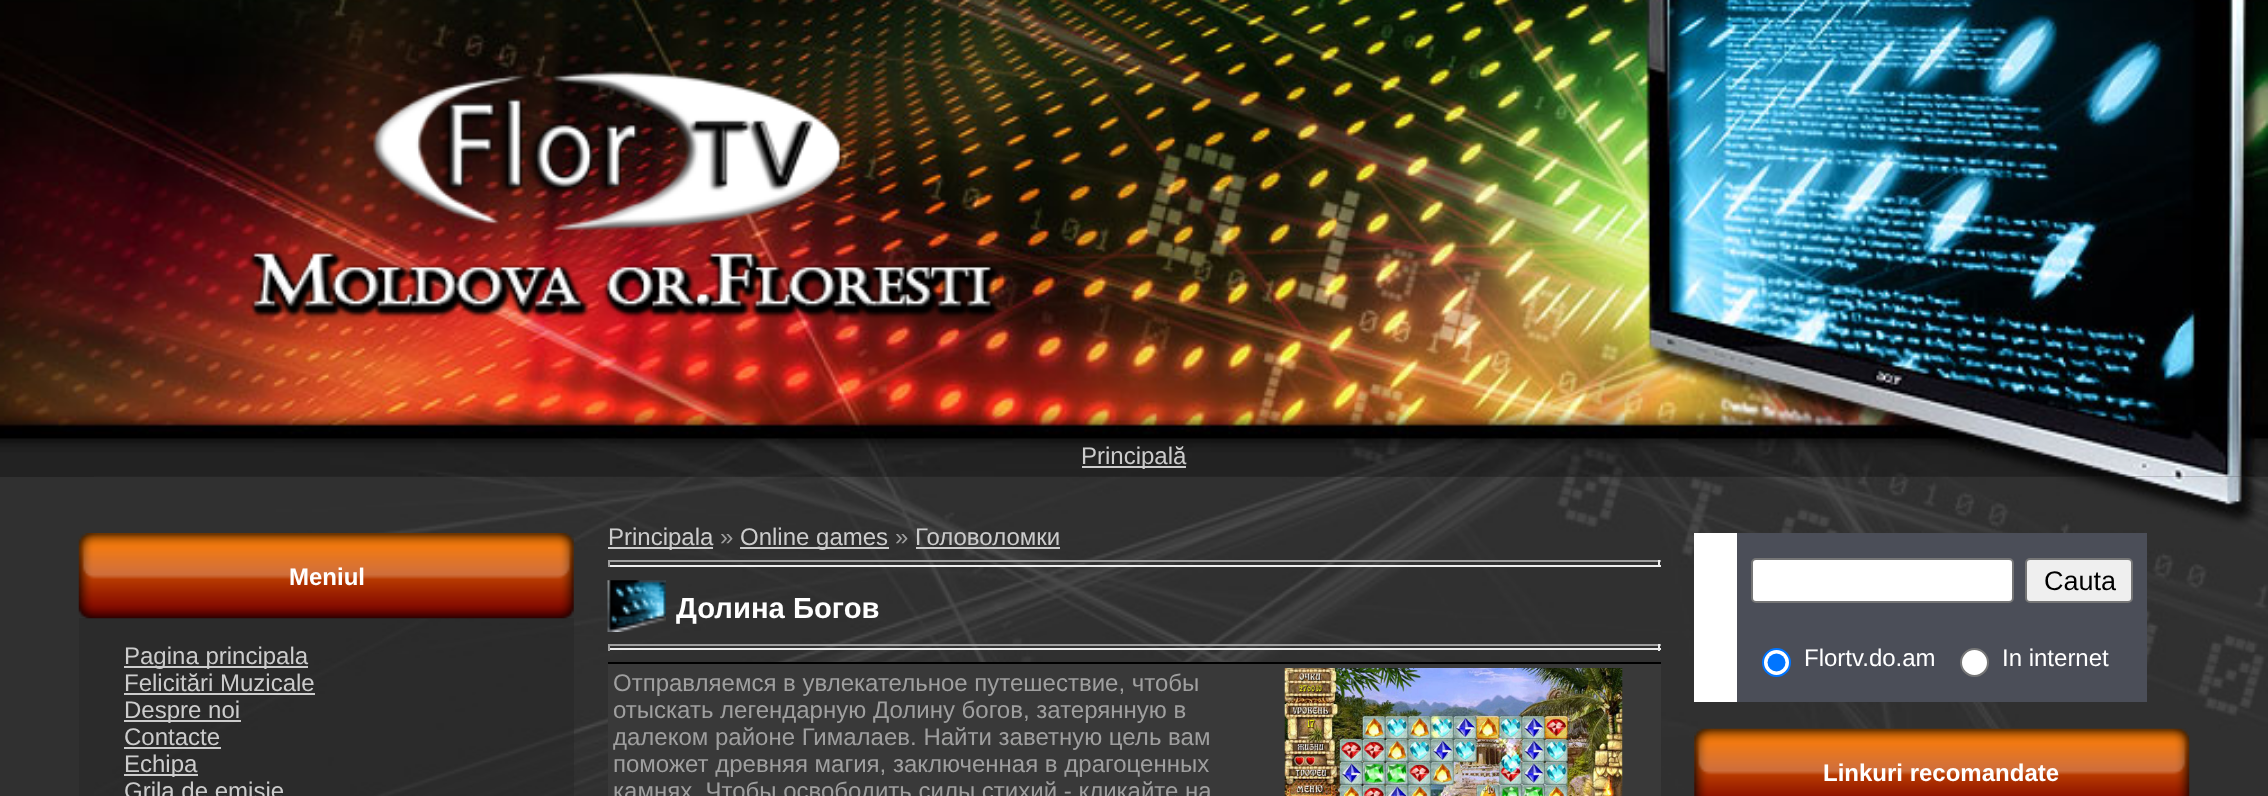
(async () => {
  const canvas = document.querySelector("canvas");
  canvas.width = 2268;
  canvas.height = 796;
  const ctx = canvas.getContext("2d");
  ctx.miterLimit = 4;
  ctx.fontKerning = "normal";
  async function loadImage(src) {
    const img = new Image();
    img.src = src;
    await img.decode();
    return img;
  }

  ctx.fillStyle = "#303030";
  ctx.fillRect(0, 0, 2268, 796);
  ctx.drawImage(await loadImage("img/1.png"), 0, 476, 2268, 1);
  ctx.drawImage(await loadImage("img/2.png"), 0, 0, 2268, 477);
  ctx.drawImage(await loadImage("img/3.png"), 249, 71, 750, 247);
  ctx.fillStyle = "#cccccc";
  ctx.fillRect(1082, 466, 104, 2);
  ctx.drawImage(await loadImage("img/4.png"), 94, 476, 2174, 320);
  ctx.drawImage(await loadImage("img/5.png"), 78, 533, 496, 86);
  for (const [x, y, w, h, color] of [
    [79, 618, 495, 178, "rgba(39, 39, 39, 0.54)"],
    [124, 666, 184, 2, "#cccccc"],
    [124, 693, 191, 2, "#cccccc"],
    [124, 720, 117, 2, "#cccccc"],
    [124, 747, 97, 2, "#cccccc"],
    [124, 774, 74, 2, "#cccccc"],
    [608, 547, 105, 2, "#cccccc"],
    [740, 547, 149, 2, "#cccccc"],
    [916, 547, 144, 2, "#cccccc"],
    [608, 560, 1053, 2, "#9f9f9f"],
    [1658, 560, 2, 7, "#eeeeee"],
    [608, 565, 1053, 2, "#eeeeee"],
    [608, 560, 2, 7, "#9f9f9f"],
  ]) {
    ctx.fillStyle = color;
    ctx.fillRect(x, y, w, h);
  }
  ctx.drawImage(await loadImage("img/6.png"), 607, 580, 59, 52);
  for (const [x, y, w, h, color] of [
    [608, 644, 1053, 2, "#9f9f9f"],
    [1658, 644, 2, 7, "#eeeeee"],
    [608, 648, 1053, 2, "#eeeeee"],
    [608, 644, 2, 7, "#9f9f9f"],
    [608, 664, 1053, 132, "#393939"],
    [608, 662, 1053, 2, "#000000"],
  ]) {
    ctx.fillStyle = color;
    ctx.fillRect(x, y, w, h);
  }
  ctx.drawImage(await loadImage("img/7.png"), 1284, 668, 339, 128);
  ctx.fillStyle = "#ffffff";
  ctx.fillRect(1694, 533, 43, 169);
  ctx.fillStyle = "#4b4e58";
  ctx.fillRect(1737, 533, 410, 169);
  ctx.fillStyle = "#ffffff";
  ctx.beginPath();
  ctx.roundRect(1752, 559, 261, 43, 4);
  ctx.fill();
  ctx.strokeStyle = "#767676";
  ctx.lineWidth = 2;
  ctx.stroke();
  ctx.fillStyle = "#efefef";
  ctx.beginPath();
  ctx.roundRect(2026, 559, 106, 43, 4);
  ctx.fill();
  ctx.stroke();
  ctx.fillStyle = "#ffffff";
  ctx.beginPath();
  ctx.arc(1776.5, 662.5, 13.5, 0, Math.PI * 2);
  ctx.fill();
  ctx.strokeStyle = "#0075ff";
  ctx.stroke();
  ctx.fillStyle = "#0075ff";
  ctx.beginPath();
  ctx.arc(1776.5, 662.5, 9, 0, Math.PI * 2);
  ctx.fill();
  ctx.fillStyle = "#ffffff";
  ctx.beginPath();
  ctx.arc(1974.5, 662.5, 13.5, 0, Math.PI * 2);
  ctx.fill();
  ctx.strokeStyle = "#767676";
  ctx.stroke();
  ctx.drawImage(await loadImage("img/8.png"), 1694, 728, 496, 68);
  ctx.font = "24px Liberation Sans";
  ctx.fillStyle = "#cccccc";
  ctx.fillText("Principală", 1081, 464);
  ctx.font = "bold 24px Liberation Sans";
  ctx.fillStyle = "#ffffff";
  ctx.fillText("Meniul", 289, 585);
  ctx.font = "24px Liberation Sans";
  ctx.fillStyle = "#cccccc";
  for (const [text, x, y] of [
    ["Pagina principala", 124, 664],
    ["Felicitări Muzicale", 124, 691],
    ["Despre noi", 124, 718],
    ["Contacte", 124, 745],
    ["Echipa", 124, 772],
    ["Grila de emisie", 124, 799],
    ["Principala", 608, 545],
  ]) {
    ctx.fillText(text, x, y);
  }
  ctx.fillStyle = "#9f9f9f";
  ctx.fillText("»", 720, 545);
  ctx.fillStyle = "#cccccc";
  ctx.fillText("Online games", 740, 545);
  ctx.fillStyle = "#9f9f9f";
  ctx.fillText("»", 895, 545);
  ctx.fillStyle = "#cccccc";
  ctx.fillText("Головоломки", 915, 545);
  ctx.font = "bold 29.25px Liberation Sans";
  ctx.fillStyle = "#ffffff";
  ctx.fillText("Долина Богов", 676, 618);
  ctx.font = "24px Liberation Sans";
  ctx.fillStyle = "#9f9f9f";
  for (const [text, x, y] of [
    ["Отправляемся в увлекательное путешествие, чтобы", 613, 691],
    ["отыскать легендарную Долину богов, затерянную в", 613, 718],
    ["далеком районе Гималаев. Найти заветную цель вам", 613, 745],
    ["поможет древняя магия, заключенная в драгоценных", 613, 772],
    ["камнях. Чтобы освободить силы стихий - кликайте на", 613, 799],
  ]) {
    ctx.fillText(text, x, y);
  }
  ctx.font = "27px Liberation Sans";
  ctx.fillStyle = "#000000";
  ctx.fillText("Cauta", 2044, 590);
  ctx.font = "24px Liberation Sans";
  ctx.fillStyle = "#ffffff";
  ctx.fillText("Flortv.do.am", 1804, 666);
  ctx.fillText("In internet", 2002, 666);
  ctx.font = "bold 24px Liberation Sans";
  ctx.fillText("Linkuri recomandate", 1823, 781);
})();
